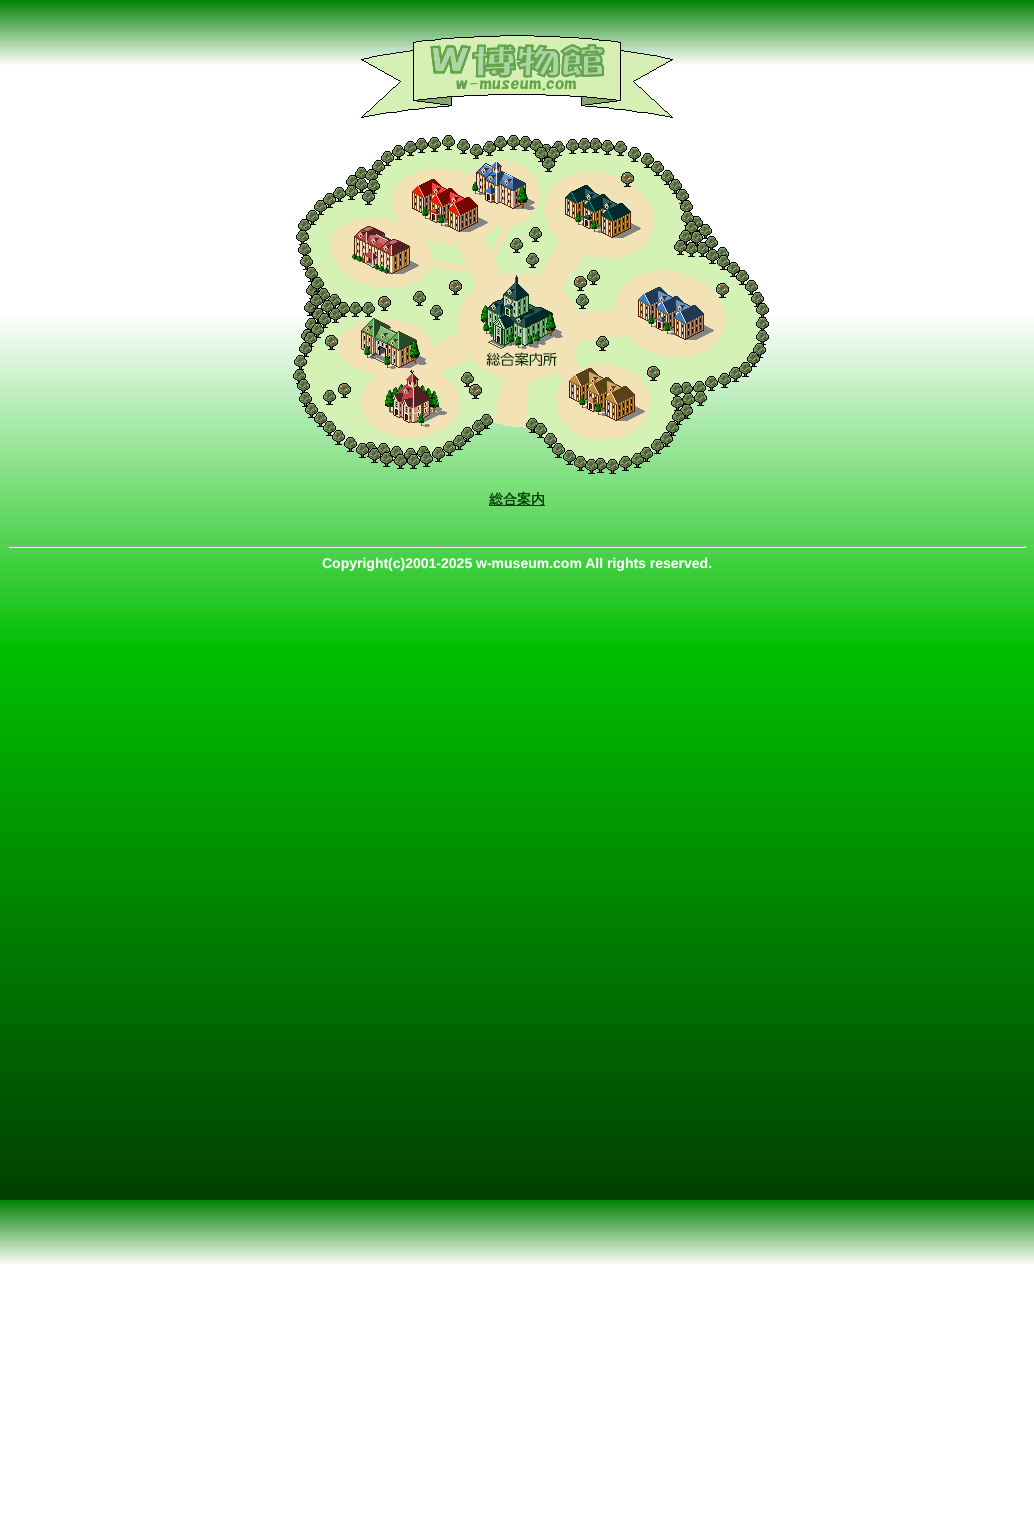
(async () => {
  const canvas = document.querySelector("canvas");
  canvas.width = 1034;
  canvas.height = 1515;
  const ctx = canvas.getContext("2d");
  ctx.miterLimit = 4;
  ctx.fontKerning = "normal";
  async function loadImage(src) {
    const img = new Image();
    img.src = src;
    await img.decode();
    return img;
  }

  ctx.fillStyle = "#ffffff";
  ctx.fillRect(0, 0, 1034, 1515);
  ctx.drawImage(await loadImage("img/1.png"), 0, 0, 1034, 1264);
  ctx.drawImage(await loadImage("img/2.png"), 361, 35, 312, 83);
  ctx.drawImage(await loadImage("img/3.png"), 293, 135, 476, 339);
  for (const [x, y, w, h, color] of [
    [489, 505, 56, 1, "#004000"],
    [8, 546, 1018, 1, "#9f9f9f"],
    [1025, 546, 1, 2, "#eeeeee"],
    [8, 547, 1018, 1, "#eeeeee"],
    [8, 546, 1, 2, "#9f9f9f"],
  ]) {
    ctx.fillStyle = color;
    ctx.fillRect(x, y, w, h);
  }
  ctx.font = "bold 14px WenQuanYi Zen Hei";
  ctx.fillStyle = "#004000";
  ctx.fillText("総合案内", 489, 504);
  ctx.font = "bold 14px Liberation Sans";
  ctx.fillStyle = "#ffffff";
  ctx.fillText("Copyright(c)2001-2025 w-museum.com All rights reserved.", 322, 568);
})();
